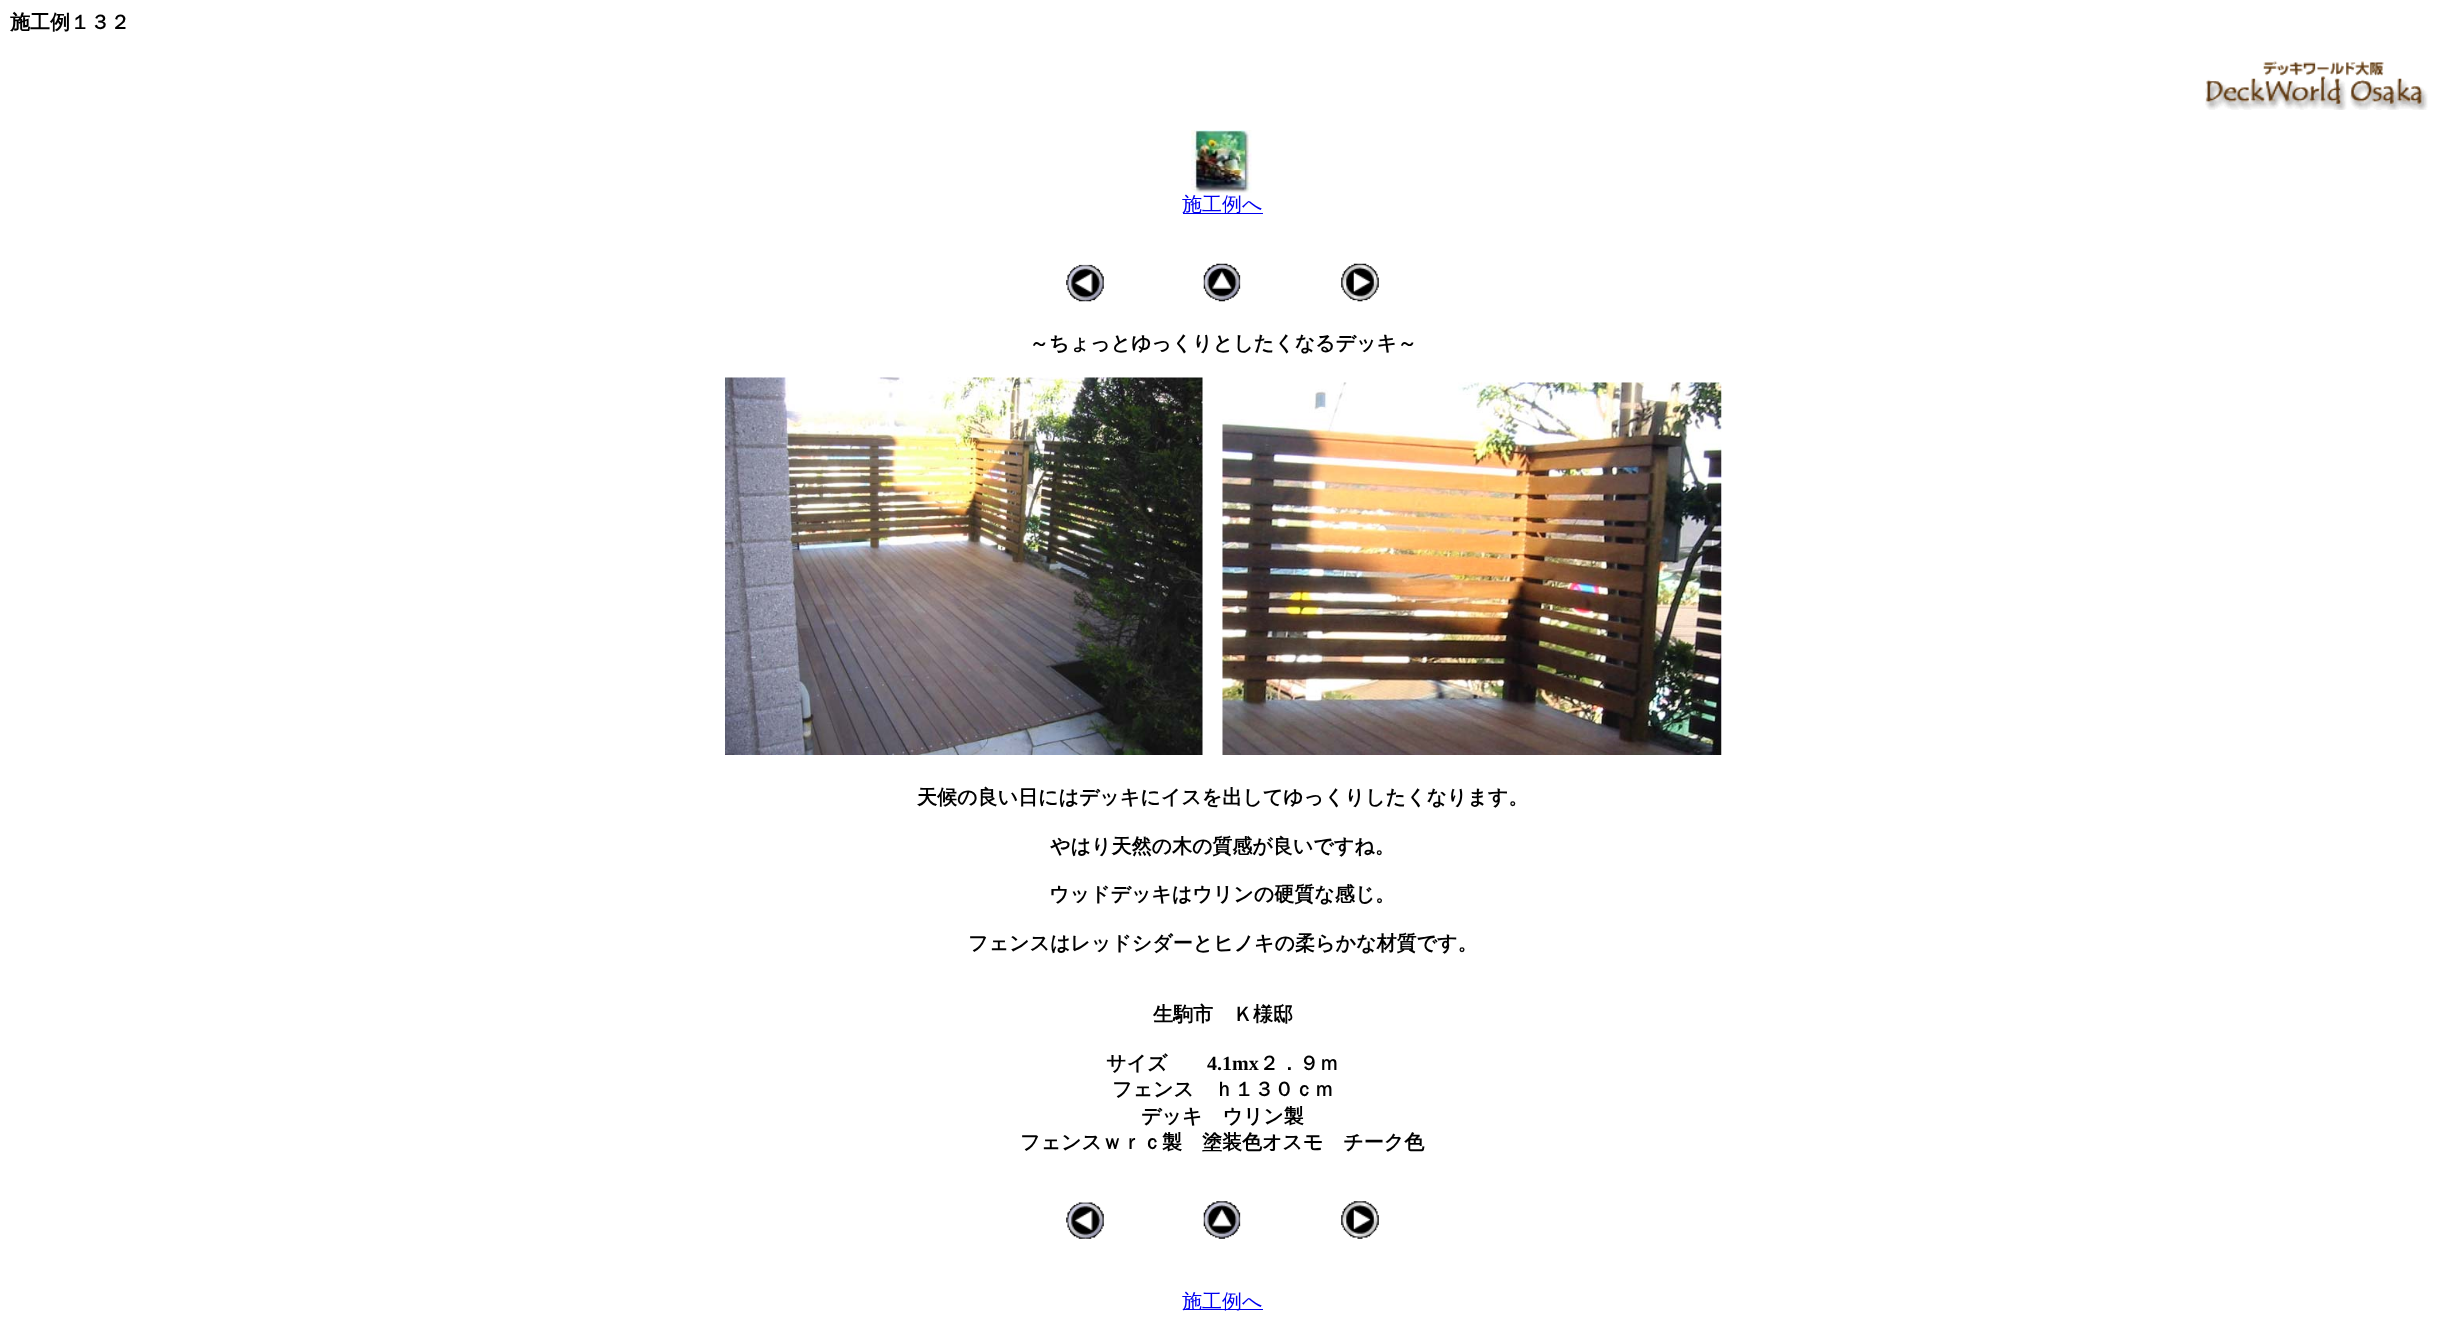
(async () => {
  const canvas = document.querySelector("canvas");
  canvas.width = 2444;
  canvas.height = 1319;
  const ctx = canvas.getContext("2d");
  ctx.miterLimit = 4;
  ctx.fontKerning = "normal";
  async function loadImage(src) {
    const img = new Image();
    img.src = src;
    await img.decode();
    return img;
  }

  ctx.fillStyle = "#ffffff";
  ctx.fillRect(0, 0, 2444, 1319);
  ctx.drawImage(await loadImage("img/1.png"), 2205, 61, 223, 49);
  ctx.drawImage(await loadImage("img/2.png"), 1191, 130, 61, 63);
  ctx.fillStyle = "#0000ee";
  ctx.fillRect(1183, 213, 80, 1);
  ctx.drawImage(await loadImage("img/3.png"), 1066, 264, 38, 38);
  ctx.drawImage(await loadImage("img/4.png"), 1203, 263, 38, 39);
  ctx.drawImage(await loadImage("img/5.png"), 1341, 263, 38, 39);
  ctx.drawImage(await loadImage("img/6.png"), 725, 377, 478, 378);
  ctx.drawImage(await loadImage("img/7.png"), 1222, 382, 500, 373);
  ctx.drawImage(await loadImage("img/8.png"), 1066, 1202, 38, 37);
  ctx.drawImage(await loadImage("img/9.png"), 1203, 1201, 38, 38);
  ctx.drawImage(await loadImage("img/10.png"), 1341, 1201, 38, 38);
  ctx.fillRect(1183, 1309, 80, 1);
  ctx.font = "bold 20px WenQuanYi Zen Hei";
  ctx.fillStyle = "#000000";
  ctx.fillText("施工例１３２", 10, 29);
  ctx.font = "500 20px WenQuanYi Zen Hei";
  ctx.fillStyle = "#0000ee";
  ctx.fillText("施工例へ", 1182, 211);
  ctx.font = "bold 20px WenQuanYi Zen Hei";
  ctx.fillStyle = "#000000";
  for (const [text, x, y] of [
    ["～ちょっとゆっくりとしたくなるデッキ～", 1029, 350],
    ["天候の良い日にはデッキにイスを出してゆっくりしたくなります。", 917, 804],
    ["やはり天然の木の質感が良いですね。", 1050, 853],
    ["ウッドデッキはウリンの硬質な感じ。", 1049, 901],
    ["フェンスはレッドシダーとヒノキの柔らかな材質です。", 968, 950],
    ["生駒市　Ｋ様邸", 1153, 1021],
    ["サイズ", 1106, 1070],
  ]) {
    ctx.fillText(text, x, y);
  }
  ctx.font = "bold 20px Liberation Serif";
  ctx.fillText("4.1mx", 1207, 1070);
  ctx.font = "bold 20px WenQuanYi Zen Hei";
  for (const [text, x, y] of [
    ["２．９ｍ", 1259, 1070],
    ["フェンス　ｈ１３０ｃｍ", 1112, 1096],
    ["デッキ　ウリン製", 1141, 1123],
    ["フェンスｗｒｃ製　塗装色オスモ　チーク色", 1020, 1149],
  ]) {
    ctx.fillText(text, x, y);
  }
  ctx.font = "500 20px WenQuanYi Zen Hei";
  ctx.fillStyle = "#0000ee";
  ctx.fillText("施工例へ", 1182, 1308);
})();
